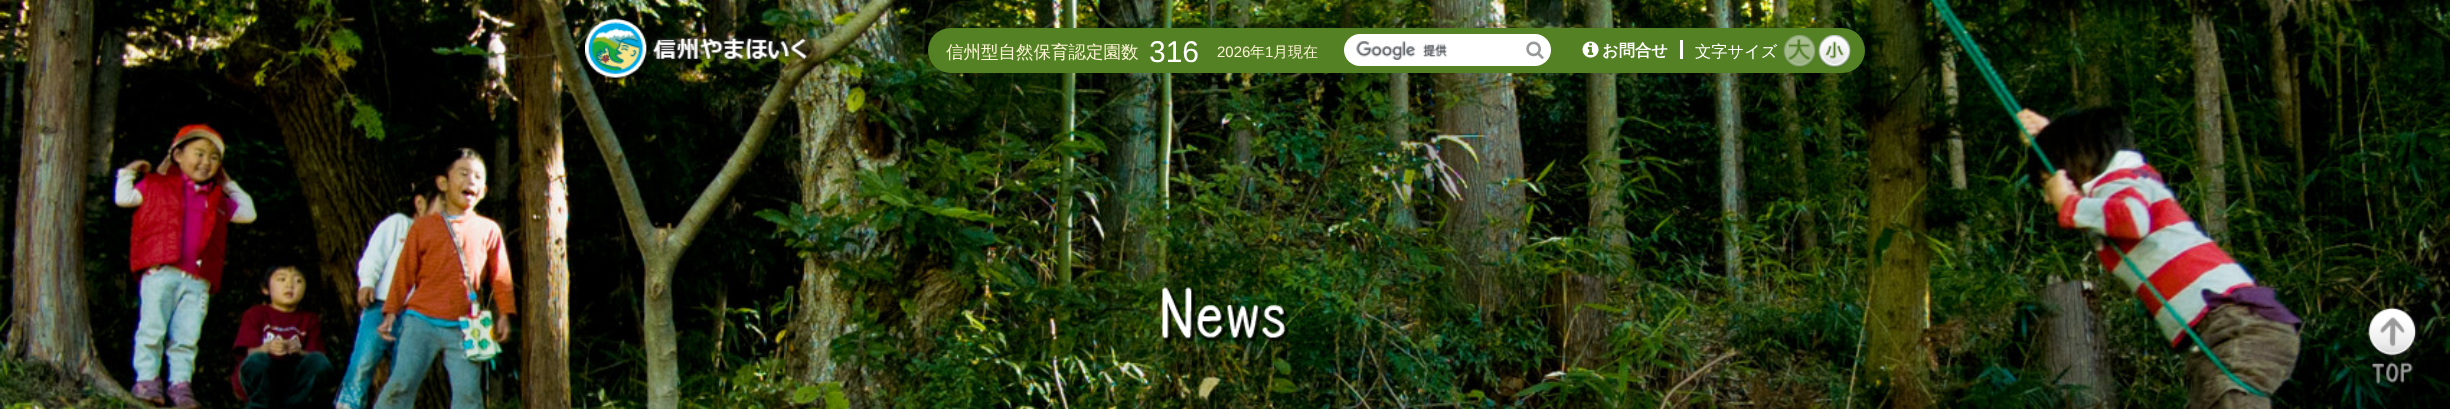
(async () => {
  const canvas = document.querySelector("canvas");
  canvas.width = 2450;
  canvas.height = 409;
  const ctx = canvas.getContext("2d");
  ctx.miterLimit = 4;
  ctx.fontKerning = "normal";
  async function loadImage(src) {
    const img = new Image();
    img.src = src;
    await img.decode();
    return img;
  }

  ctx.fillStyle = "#ffffff";
  ctx.fillRect(0, 0, 2450, 409);
  ctx.drawImage(await loadImage("img/1.png"), 0, 0, 2450, 409);
  ctx.drawImage(await loadImage("img/2.png"), 1162, 287, 127, 56);
  ctx.drawImage(await loadImage("img/3.png"), 585, 18, 227, 65);
  ctx.fillStyle = "#548124";
  ctx.beginPath();
  ctx.roundRect(928, 28, 937, 45, 22.5);
  ctx.fill();
  ctx.fillStyle = "#ffffff";
  ctx.beginPath();
  ctx.roundRect(1344, 34, 207, 32, 16);
  ctx.fill();
  ctx.drawImage(await loadImage("img/4.png"), 1356, 41, 91, 19);
  ctx.drawImage(await loadImage("img/5.png"), 1526, 41, 18, 18);
  ctx.fillRect(1680, 40, 3, 19);
  ctx.drawImage(await loadImage("img/6.png"), 1582, 41, 17, 17);
  ctx.drawImage(await loadImage("img/7.png"), 1783, 35, 33, 33);
  ctx.drawImage(await loadImage("img/8.png"), 1818, 35, 34, 33);
  ctx.drawImage(await loadImage("img/9.png"), 2368, 307, 52, 77);
  ctx.font = "500 17.5px WenQuanYi Zen Hei";
  ctx.fillStyle = "#fdf3d5";
  ctx.fillText("信州型自然保育認定園数", 946, 58);
  ctx.font = "30px Liberation Sans";
  ctx.fillStyle = "#ffffff";
  ctx.fillText("316", 1149, 62);
  ctx.font = "15px Liberation Sans";
  ctx.fillStyle = "#fdf3d5";
  ctx.fillText("2026", 1217, 57);
  ctx.font = "500 15px WenQuanYi Zen Hei";
  ctx.fillText("年", 1250, 57);
  ctx.font = "15px Liberation Sans";
  ctx.fillText("1", 1265, 57);
  ctx.font = "500 15px WenQuanYi Zen Hei";
  ctx.fillText("月現在", 1273, 57);
  ctx.font = "bold 16.25px WenQuanYi Zen Hei";
  ctx.fillStyle = "#ffffff";
  ctx.fillText("お問合せ", 1602, 56);
  ctx.font = "500 16.25px WenQuanYi Zen Hei";
  ctx.fillText("文字サイズ", 1695, 57);
})();
